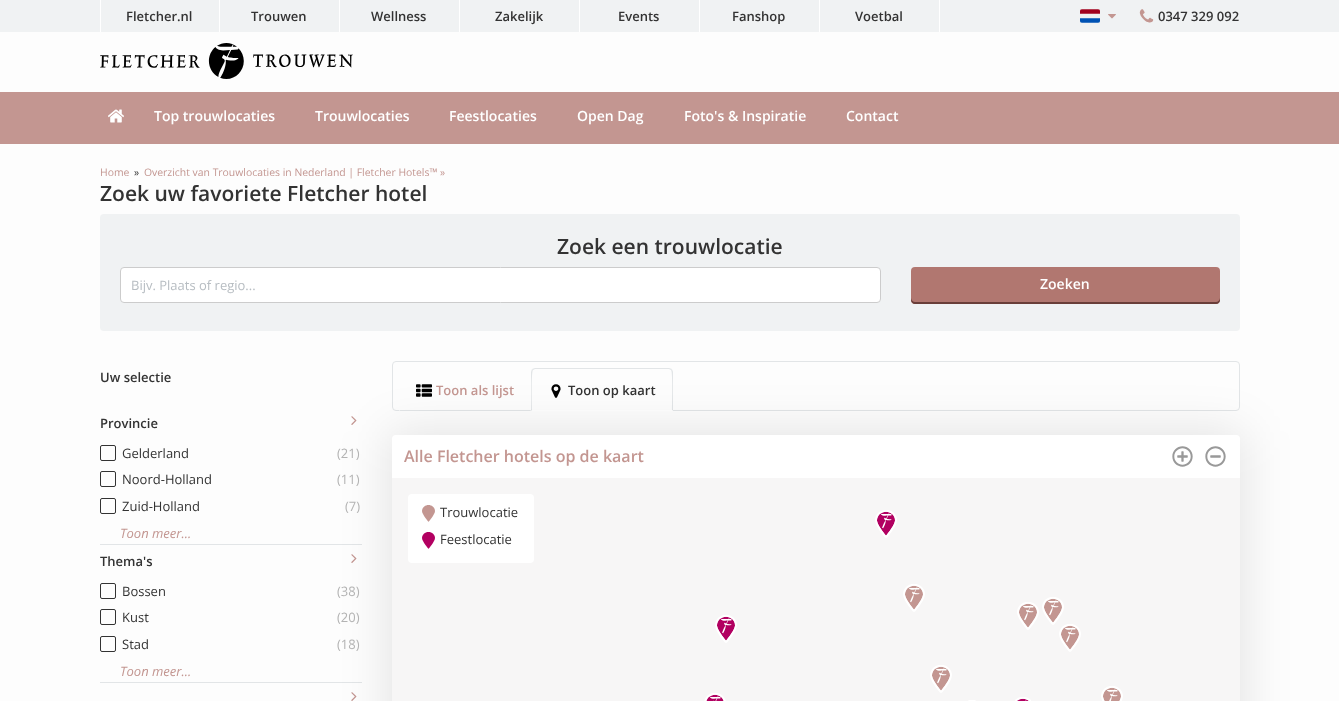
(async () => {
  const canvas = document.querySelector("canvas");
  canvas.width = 1339;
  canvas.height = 701;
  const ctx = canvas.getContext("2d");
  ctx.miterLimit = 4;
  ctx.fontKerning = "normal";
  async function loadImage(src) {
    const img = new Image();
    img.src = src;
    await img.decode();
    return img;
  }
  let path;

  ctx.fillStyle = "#fdfdfd";
  ctx.fillRect(0, 0, 1339, 701);
  for (const [x, y, w, h, color] of [
    [0, 0, 1339, 32, "#f0f2f3"],
    [219, 0, 1, 32, "#ffffff"],
    [100, 0, 1, 32, "#ffffff"],
    [339, 0, 1, 32, "#ffffff"],
    [459, 0, 1, 32, "#ffffff"],
    [579, 0, 1, 32, "#ffffff"],
    [699, 0, 1, 32, "#ffffff"],
    [819, 0, 1, 32, "#ffffff"],
    [939, 0, 1, 32, "#ffffff"],
  ]) {
    ctx.fillStyle = color;
    ctx.fillRect(x, y, w, h);
  }
  ctx.drawImage(await loadImage("img/1.png"), 1080, 9, 20, 14);
  ctx.drawImage(await loadImage("img/2.png"), 1108, 14, 8, 5);
  ctx.drawImage(await loadImage("img/3.png"), 1139, 9, 15, 14);
  ctx.drawImage(await loadImage("img/4.png"), 100, 43, 253, 36);
  ctx.fillStyle = "#c39691";
  ctx.fillRect(0, 92, 1339, 52);
  ctx.drawImage(await loadImage("img/5.png"), 108, 109, 16, 14);
  ctx.fillStyle = "#f0f2f3";
  ctx.beginPath();
  ctx.roundRect(100, 214, 1140, 117, 4);
  ctx.fill();
  ctx.fillStyle = "#ffffff";
  ctx.beginPath();
  ctx.roundRect(120.5, 267.5, 760, 35, 3.5);
  ctx.fill();
  ctx.strokeStyle = "#cccccc";
  ctx.stroke();
  ctx.fillStyle = "#b17770";
  ctx.beginPath();
  ctx.roundRect(911, 267, 309, 37, 4);
  ctx.fill();
  ctx.fillStyle = "#693e39";
  path = new Path2D("M911 298V300C911 302 913 304 915 304H1216C1218 304 1220 302 1220 300V298C1220 300 1218 302 1216 302H915C913 302 911 300 911 298Z");
  ctx.fill(path);
  ctx.fillStyle = "#e2e5e7";
  ctx.fillRect(100, 544, 262, 1);
  ctx.drawImage(await loadImage("img/6.png"), 351, 416, 6, 9);
  ctx.beginPath();
  ctx.roundRect(100.5, 445.5, 15, 15, 1.5);
  ctx.strokeStyle = "#333333";
  ctx.stroke();
  ctx.beginPath();
  ctx.roundRect(100.5, 471.5, 15, 15, 1.5);
  ctx.stroke();
  ctx.beginPath();
  ctx.roundRect(100.5, 498.5, 15, 15, 1.5);
  ctx.stroke();
  ctx.fillRect(100, 682, 262, 1);
  ctx.drawImage(await loadImage("img/6.png"), 351, 554, 6, 9);
  ctx.beginPath();
  ctx.roundRect(100.5, 583.5, 15, 15, 1.5);
  ctx.stroke();
  ctx.beginPath();
  ctx.roundRect(100.5, 609.5, 15, 15, 1.5);
  ctx.stroke();
  ctx.beginPath();
  ctx.roundRect(100.5, 636.5, 15, 15, 1.5);
  ctx.stroke();
  ctx.drawImage(await loadImage("img/6.png"), 351, 692, 6, 9);
  ctx.beginPath();
  ctx.roundRect(392.5, 361.5, 847, 49, 3.5);
  ctx.strokeStyle = "#e2e5e7";
  ctx.stroke();
  ctx.fillStyle = "#fdfdfd";
  path = new Path2D("M531 411V372C531 371 530 370 530 369L529 370C531 372 530 405 530 410Z");
  ctx.fill(path);
  ctx.fillStyle = "#e2e5e7";
  path = new Path2D("M531 411L530 410H400L399 411Z");
  ctx.fill(path);
  ctx.fillStyle = "#fdfdfd";
  path = new Path2D("M399 411L400 410C400 405 399 372 401 370L400 369L399 372Z");
  ctx.fill(path);
  ctx.drawImage(await loadImage("img/7.png"), 416, 384, 16, 13);
  ctx.beginPath();
  ctx.roundRect(531, 368, 142, 43, [4, 4, 0, 0]);
  ctx.fill();
  ctx.fillStyle = "#e2e5e7";
  path = new Path2D("M535 368L532 369L533 370L535 369H669L671 370L672 369L669 368Z");
  ctx.fill(path);
  path = new Path2D("M673 411V372C673 371 672 370 672 369L671 370C673 372 672 405 672 410Z");
  ctx.fill(path);
  ctx.fillStyle = "#ffffff";
  path = new Path2D("M673 411L672 410H532L531 411Z");
  ctx.fill(path);
  ctx.fillStyle = "#e2e5e7";
  path = new Path2D("M531 411L532 410C532 405 531 372 533 370L532 369L531 372Z");
  ctx.fill(path);
  ctx.drawImage(await loadImage("img/8.png"), 551, 384, 10, 14);
  ctx.fillStyle = "rgba(0, 0, 0, 0.1)";
  ctx.filter = "blur(24px)";
  ctx.beginPath();
  ctx.roundRect(388, 431, 856, 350, 8);
  ctx.fill();
  ctx.filter = "none";
  ctx.fillStyle = "#f7f6f6";
  ctx.beginPath();
  ctx.roundRect(392, 435, 848, 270, 4);
  ctx.fill();
  ctx.fillStyle = "#ffffff";
  ctx.beginPath();
  ctx.roundRect(392, 435, 848, 43, [4, 4, 0, 0]);
  ctx.fill();
  ctx.drawImage(await loadImage("img/9.png"), 1172, 446, 21, 21);
  ctx.drawImage(await loadImage("img/10.png"), 1205, 446, 21, 21);
  ctx.beginPath();
  ctx.roundRect(408, 494, 126, 69, 4);
  ctx.fill();
  ctx.drawImage(await loadImage("img/11.png"), 422, 505, 13, 17);
  ctx.drawImage(await loadImage("img/12.png"), 422, 532, 13, 17);
  ctx.drawImage(await loadImage("img/13.png"), 875, 510, 22, 28);
  ctx.drawImage(await loadImage("img/13.png"), 715, 615, 22, 28);
  ctx.drawImage(await loadImage("img/14.png"), 903, 584, 22, 28);
  ctx.drawImage(await loadImage("img/14.png"), 1017, 602, 22, 28);
  ctx.drawImage(await loadImage("img/15.png"), 1059, 624, 22, 28);
  ctx.drawImage(await loadImage("img/14.png"), 1042, 597, 22, 28);
  ctx.drawImage(await loadImage("img/16.png"), 704, 693, 22, 8);
  ctx.drawImage(await loadImage("img/14.png"), 930, 665, 22, 28);
  ctx.drawImage(await loadImage("img/17.png"), 968, 700, 8, 1);
  ctx.drawImage(await loadImage("img/18.png"), 1015, 697, 16, 4);
  ctx.drawImage(await loadImage("img/19.png"), 1101, 686, 22, 15);
  ctx.font = "600 13px Open Sans";
  ctx.fillStyle = "#333333";
  for (const [text, x, y] of [
    ["Fletcher.nl", 126, 21],
    ["Trouwen", 251, 21],
    ["Wellness", 371, 21],
    ["Zakelijk", 495, 21],
    ["Events", 618, 21],
    ["Fanshop", 732, 21],
    ["Voetbal", 855, 21],
    ["0347 329 092", 1158, 21],
  ]) {
    ctx.fillText(text, x, y);
  }
  ctx.font = "600 14px Open Sans";
  ctx.fillStyle = "#ffffff";
  for (const [text, x, y] of [
    ["Top trouwlocaties", 154, 121],
    ["Trouwlocaties", 315, 121],
    ["Feestlocaties", 449, 121],
    ["Open Dag", 577, 121],
    ["Foto's & Inspiratie", 684, 121],
    ["Contact", 846, 121],
  ]) {
    ctx.fillText(text, x, y);
  }
  ctx.font = "10.4px Open Sans";
  ctx.fillStyle = "#c39691";
  ctx.fillText("Home", 100, 176);
  ctx.fillStyle = "#333333";
  ctx.fillText("»", 134, 176);
  ctx.fillStyle = "#c39691";
  ctx.fillText("Overzicht van Trouwlocaties in Nederland | Fletcher Hotels™ »", 144, 176);
  ctx.font = "600 21px Open Sans";
  ctx.fillStyle = "#333333";
  ctx.fillText("Zoek uw favoriete Fletcher hotel", 100, 201);
  ctx.fillText("Zoek een trouwlocatie", 557, 254);
  ctx.font = "13px Open Sans";
  ctx.fillStyle = "#b7bdc2";
  ctx.fillText("Bijv. Plaats of regio...", 131, 290);
  ctx.font = "600 14px Open Sans";
  ctx.fillStyle = "#ffffff";
  ctx.fillText("Zoeken", 1040, 289);
  ctx.font = "600 13px Open Sans";
  ctx.fillStyle = "#333333";
  ctx.fillText("Uw selectie", 100, 382);
  ctx.fillText("Provincie", 100, 428);
  ctx.font = "13px Open Sans";
  ctx.fillText("Gelderland", 122, 458);
  ctx.fillStyle = "#b3b3b3";
  ctx.fillText("(21)", 337, 458);
  ctx.fillStyle = "#333333";
  ctx.fillText("Noord-Holland", 122, 484);
  ctx.fillStyle = "#b3b3b3";
  ctx.fillText("(11)", 337, 484);
  ctx.fillStyle = "#333333";
  ctx.fillText("Zuid-Holland", 122, 511);
  ctx.fillStyle = "#b3b3b3";
  ctx.fillText("(7)", 345, 511);
  ctx.font = "italic 13px Open Sans";
  ctx.fillStyle = "#c39691";
  ctx.fillText("Toon meer...", 120, 538);
  ctx.font = "600 13px Open Sans";
  ctx.fillStyle = "#333333";
  ctx.fillText("Thema's", 100, 566);
  ctx.font = "13px Open Sans";
  ctx.fillText("Bossen", 122, 596);
  ctx.fillStyle = "#b3b3b3";
  ctx.fillText("(38)", 337, 596);
  ctx.fillStyle = "#333333";
  ctx.fillText("Kust", 122, 622);
  ctx.fillStyle = "#b3b3b3";
  ctx.fillText("(20)", 337, 622);
  ctx.fillStyle = "#333333";
  ctx.fillText("Stad", 122, 649);
  ctx.fillStyle = "#b3b3b3";
  ctx.fillText("(18)", 337, 649);
  ctx.font = "italic 13px Open Sans";
  ctx.fillStyle = "#c39691";
  ctx.fillText("Toon meer...", 120, 676);
  ctx.font = "600 13px Open Sans";
  ctx.fillText("Toon als lijst", 436, 395);
  ctx.fillStyle = "#333333";
  ctx.fillText("Toon op kaart", 568, 395);
  ctx.font = "600 16px Open Sans";
  ctx.fillStyle = "#c39691";
  ctx.fillText("Alle Fletcher hotels op de kaart", 404, 462);
  ctx.font = "13px Open Sans";
  ctx.fillStyle = "#333333";
  ctx.fillText("Trouwlocatie", 440, 517);
  ctx.fillText("Feestlocatie", 440, 544);
})();
